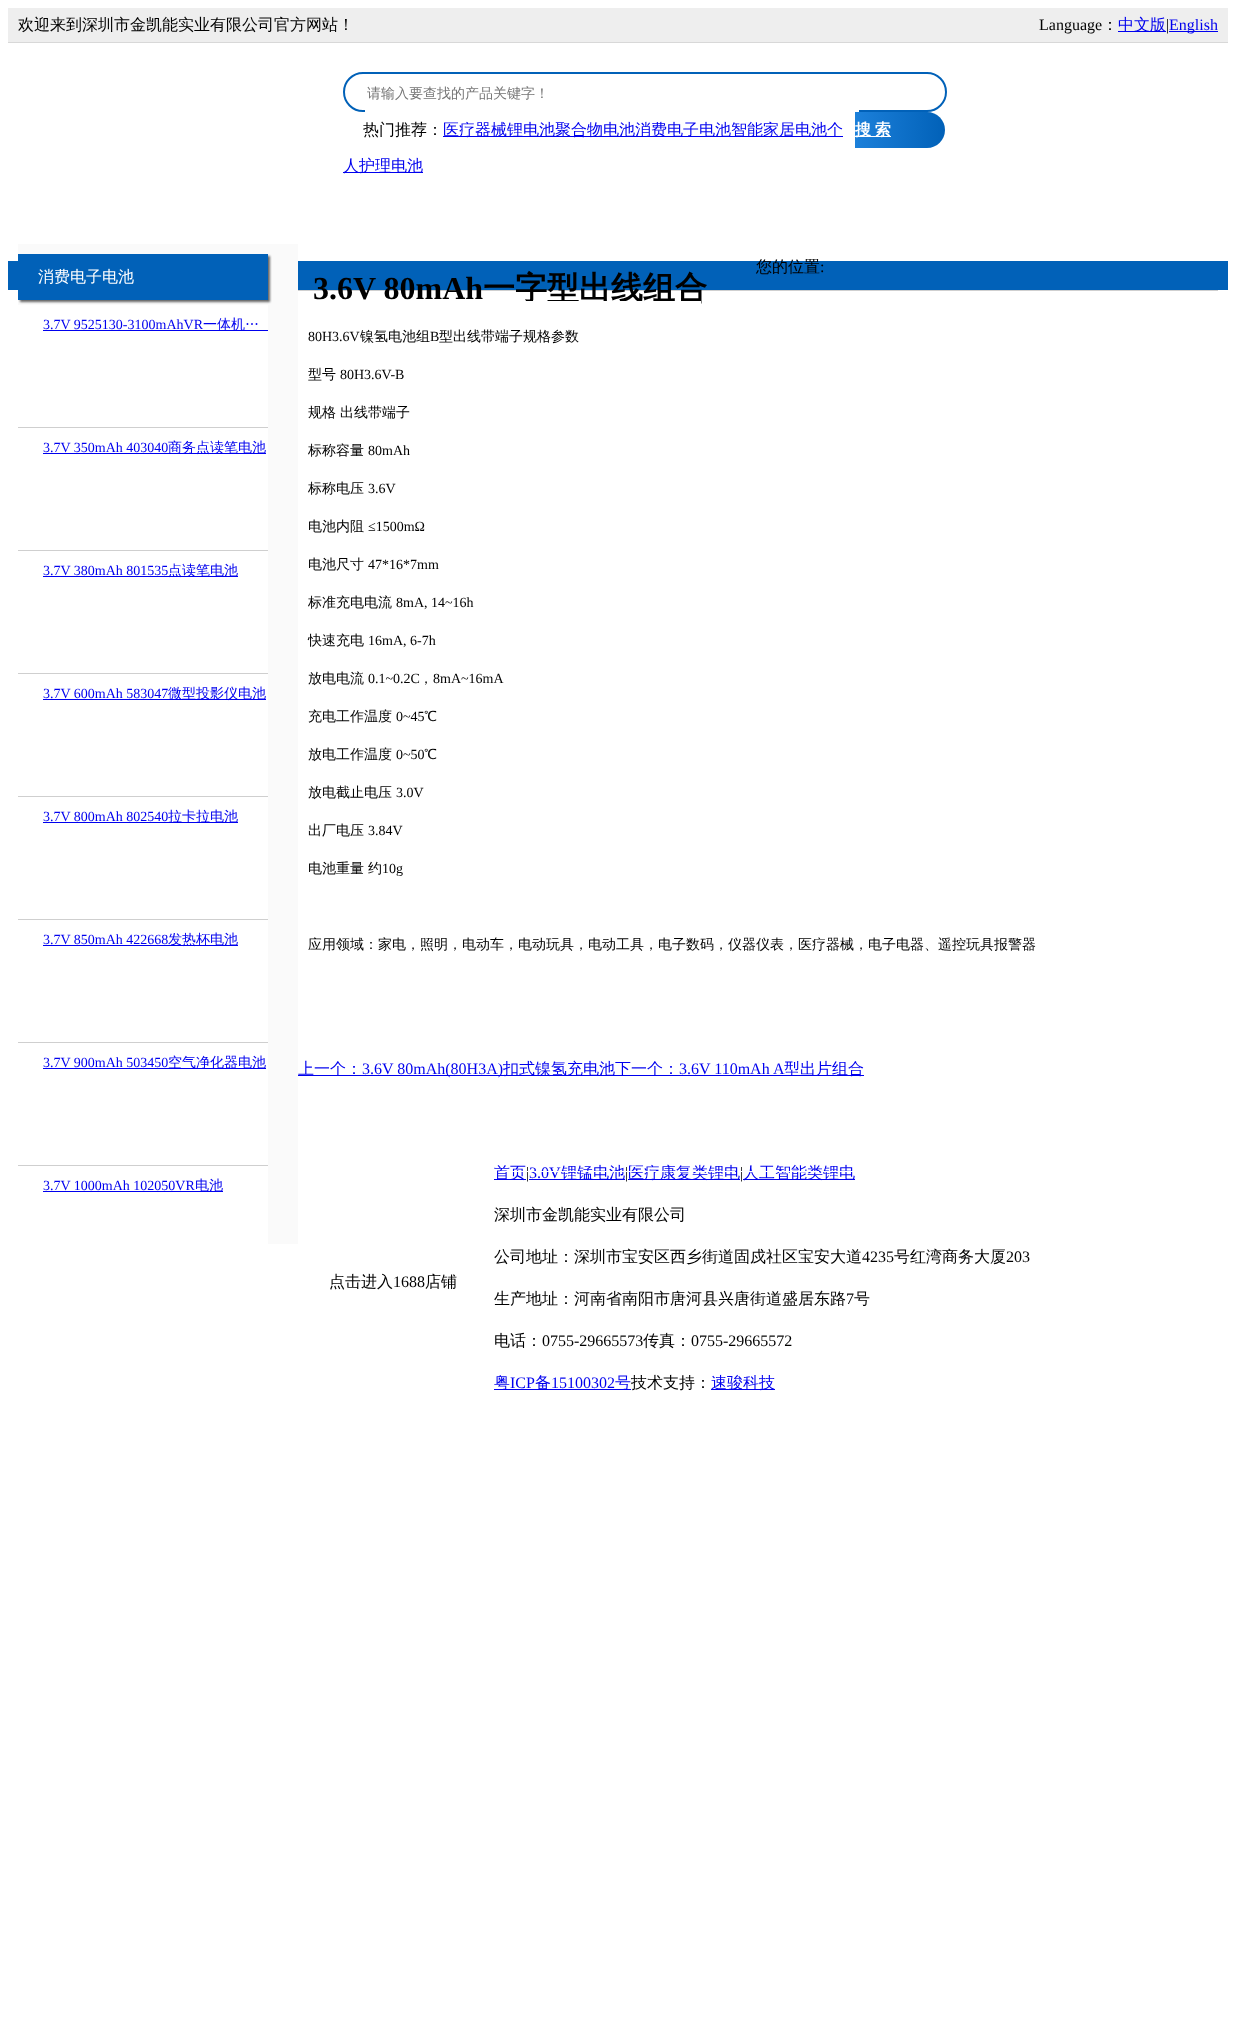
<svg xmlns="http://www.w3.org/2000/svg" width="1236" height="2040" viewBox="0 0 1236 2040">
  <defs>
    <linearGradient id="g1" gradientUnits="userSpaceOnUse" x1="855" y1="130" x2="945" y2="130"><stop offset="0" stop-color="rgb(28,128,218)"/><stop offset="1" stop-color="rgb(1,97,184)"/></linearGradient>
  </defs>
  <rect width="100%" height="100%" fill="rgb(255,255,255)"/>
  <rect x="8" y="8" width="1220" height="34" fill="rgb(238,238,238)"/>
  <rect x="8" y="42" width="1220" height="1" fill="rgb(216,216,216)"/>
  <text x="18" y="30" font-family="WenQuanYi Zen Hei" font-size="16" font-weight="500" fill="rgb(0,0,0)">欢迎来到深圳市金凯能实业有限公司官方网站！</text>
  <text x="1039" y="30" font-family="Liberation Serif" font-size="16" fill="rgb(0,0,0)">Language</text>
  <text x="1102" y="30" font-family="WenQuanYi Zen Hei" font-size="16" font-weight="500" fill="rgb(0,0,0)">：</text>
  <rect x="1118" y="31" width="48" height="1" fill="rgb(0,0,238)"/>
  <text x="1118" y="30" font-family="WenQuanYi Zen Hei" font-size="16" font-weight="500" fill="rgb(0,0,238)">中文版</text>
  <text x="1166" y="30" font-family="Liberation Serif" font-size="16" fill="rgb(0,0,0)">|</text>
  <rect x="1169" y="31" width="49" height="1" fill="rgb(0,0,238)"/>
  <text x="1169" y="30" font-family="Liberation Serif" font-size="16" fill="rgb(0,0,238)">English</text>
  <rect x="344" y="73" width="602" height="38" rx="19" fill="none" stroke="rgb(1,97,184)" stroke-width="2"/>
  <rect x="365" y="110" width="494" height="2" fill="rgb(255,255,255)"/>
  <text x="367" y="98" font-family="WenQuanYi Zen Hei" font-size="14" font-weight="500" fill="rgb(117,117,117)">请输入要查找的产品关键字！</text>
  <path d="M855 112H927C937 112 945 120 945 130C945 140 937 148 927 148H855Z" fill="url(#g1)"/>
  <rect x="855" y="136" width="36" height="1" fill="rgb(255,255,255)"/>
  <text x="855" y="135" word-spacing="-1" font-family="WenQuanYi Zen Hei" font-size="16" font-weight="bold" fill="rgb(255,255,255)">搜 索</text>
  <text x="363" y="135" font-family="WenQuanYi Zen Hei" font-size="16" font-weight="500" fill="rgb(0,0,0)">热门推荐：</text>
  <rect x="443" y="136" width="400" height="1" fill="rgb(0,0,238)"/>
  <text x="443" y="135" font-family="WenQuanYi Zen Hei" font-size="16" font-weight="500" fill="rgb(0,0,238)">医疗器械锂电池聚合物电池消费电子电池智能家居电池个</text>
  <rect x="343" y="172" width="80" height="1" fill="rgb(0,0,238)"/>
  <text x="343" y="171" font-family="WenQuanYi Zen Hei" font-size="16" font-weight="500" fill="rgb(0,0,238)">人护理电池</text>
  <rect x="8" y="261" width="1220" height="29" fill="rgb(1,97,184)"/>
  <rect x="18" y="244" width="280" height="1000" fill="rgb(250,250,250)"/>
  <rect x="20" y="256" width="250" height="46" fill="rgb(102,102,102)" filter="blur(1px)"/>
  <rect x="18" y="254" width="250" height="46" fill="rgb(1,97,184)"/>
  <text x="38" y="282" font-family="WenQuanYi Zen Hei" font-size="16" font-weight="500" fill="rgb(255,255,255)">消费电子电池</text>
  <rect x="18" y="305" width="250" height="939" fill="rgb(255,255,255)"/>
  <rect x="18" y="427" width="250" height="1" fill="rgb(207,207,207)"/>
  <text x="43" y="329" font-family="Liberation Serif" font-size="14" fill="rgb(0,0,238)">3.7V 9525130-3100mAhVR</text>
  <rect x="43" y="330" width="225" height="1" fill="rgb(0,0,238)"/>
  <text x="203" y="329" font-family="WenQuanYi Zen Hei" font-size="14" font-weight="500" fill="rgb(0,0,238)">一体机…</text>
  <rect x="18" y="550" width="250" height="1" fill="rgb(207,207,207)"/>
  <text x="43" y="452" font-family="Liberation Serif" font-size="14" fill="rgb(0,0,238)">3.7V 350mAh 403040</text>
  <rect x="43" y="453" width="223" height="1" fill="rgb(0,0,238)"/>
  <text x="168" y="452" font-family="WenQuanYi Zen Hei" font-size="14" font-weight="500" fill="rgb(0,0,238)">商务点读笔电池</text>
  <rect x="18" y="673" width="250" height="1" fill="rgb(207,207,207)"/>
  <text x="43" y="575" font-family="Liberation Serif" font-size="14" fill="rgb(0,0,238)">3.7V 380mAh 801535</text>
  <rect x="43" y="576" width="195" height="1" fill="rgb(0,0,238)"/>
  <text x="168" y="575" font-family="WenQuanYi Zen Hei" font-size="14" font-weight="500" fill="rgb(0,0,238)">点读笔电池</text>
  <rect x="18" y="796" width="250" height="1" fill="rgb(207,207,207)"/>
  <text x="43" y="698" font-family="Liberation Serif" font-size="14" fill="rgb(0,0,238)">3.7V 600mAh 583047</text>
  <rect x="43" y="699" width="223" height="1" fill="rgb(0,0,238)"/>
  <text x="168" y="698" font-family="WenQuanYi Zen Hei" font-size="14" font-weight="500" fill="rgb(0,0,238)">微型投影仪电池</text>
  <rect x="18" y="919" width="250" height="1" fill="rgb(207,207,207)"/>
  <text x="43" y="821" font-family="Liberation Serif" font-size="14" fill="rgb(0,0,238)">3.7V 800mAh 802540</text>
  <rect x="43" y="822" width="195" height="1" fill="rgb(0,0,238)"/>
  <text x="168" y="821" font-family="WenQuanYi Zen Hei" font-size="14" font-weight="500" fill="rgb(0,0,238)">拉卡拉电池</text>
  <rect x="18" y="1042" width="250" height="1" fill="rgb(207,207,207)"/>
  <text x="43" y="944" font-family="Liberation Serif" font-size="14" fill="rgb(0,0,238)">3.7V 850mAh 422668</text>
  <rect x="43" y="945" width="195" height="1" fill="rgb(0,0,238)"/>
  <text x="168" y="944" font-family="WenQuanYi Zen Hei" font-size="14" font-weight="500" fill="rgb(0,0,238)">发热杯电池</text>
  <rect x="18" y="1165" width="250" height="1" fill="rgb(207,207,207)"/>
  <text x="43" y="1067" font-family="Liberation Serif" font-size="14" fill="rgb(0,0,238)">3.7V 900mAh 503450</text>
  <rect x="43" y="1068" width="223" height="1" fill="rgb(0,0,238)"/>
  <text x="168" y="1067" font-family="WenQuanYi Zen Hei" font-size="14" font-weight="500" fill="rgb(0,0,238)">空气净化器电池</text>
  <text x="43" y="1190" font-family="Liberation Serif" font-size="14" fill="rgb(0,0,238)">3.7V 1000mAh 102050VR</text>
  <rect x="43" y="1191" width="180" height="1" fill="rgb(0,0,238)"/>
  <text x="195" y="1190" font-family="WenQuanYi Zen Hei" font-size="14" font-weight="500" fill="rgb(0,0,238)">电池</text>
  <rect x="298" y="290" width="920" height="1" fill="rgb(207,207,207)"/>
  <text x="756" y="272" font-family="WenQuanYi Zen Hei" font-size="16" font-weight="500" fill="rgb(0,0,0)">您的位置</text>
  <text x="820" y="272" font-family="Liberation Serif" font-size="16" fill="rgb(0,0,0)">:</text>
  <text x="313" y="299" font-family="Liberation Serif" font-size="32" font-weight="bold" fill="rgb(0,0,0)">3.6V 80mAh</text>
  <text x="483" y="299" font-family="WenQuanYi Zen Hei" font-size="32" font-weight="bold" fill="rgb(0,0,0)">一字型出线组合</text>
  <rect x="526" y="301" width="175" height="3" fill="rgb(255,255,255)"/>
  <text x="308" y="341" font-family="Liberation Serif" font-size="14" fill="rgb(0,0,0)">80H3.6V</text>
  <text x="360" y="341" font-family="WenQuanYi Zen Hei" font-size="14" font-weight="500" fill="rgb(0,0,0)">镍氢电池组</text>
  <text x="430" y="341" font-family="Liberation Serif" font-size="14" fill="rgb(0,0,0)">B</text>
  <g font-family="WenQuanYi Zen Hei" font-size="14" font-weight="500" fill="rgb(0,0,0)">
    <text x="439" y="341">型出线带端子规格参数</text>
    <text x="308" y="379">型号</text>
  </g>
  <text x="340" y="379" font-family="Liberation Serif" font-size="14" fill="rgb(0,0,0)">80H3.6V-B</text>
  <g font-family="WenQuanYi Zen Hei" font-size="14" font-weight="500" fill="rgb(0,0,0)">
    <text x="308" y="417">规格</text>
    <text x="340" y="417">出线带端子</text>
    <text x="308" y="455">标称容量</text>
  </g>
  <text x="368" y="455" font-family="Liberation Serif" font-size="14" fill="rgb(0,0,0)">80mAh</text>
  <text x="308" y="493" font-family="WenQuanYi Zen Hei" font-size="14" font-weight="500" fill="rgb(0,0,0)">标称电压</text>
  <text x="368" y="493" font-family="Liberation Serif" font-size="14" fill="rgb(0,0,0)">3.6V</text>
  <text x="308" y="531" font-family="WenQuanYi Zen Hei" font-size="14" font-weight="500" fill="rgb(0,0,0)">电池内阻</text>
  <text x="368" y="531" font-family="Liberation Serif" font-size="14" fill="rgb(0,0,0)">≤1500mΩ</text>
  <text x="308" y="569" font-family="WenQuanYi Zen Hei" font-size="14" font-weight="500" fill="rgb(0,0,0)">电池尺寸</text>
  <text x="368" y="569" font-family="Liberation Serif" font-size="14" fill="rgb(0,0,0)">47*16*7mm</text>
  <text x="308" y="607" font-family="WenQuanYi Zen Hei" font-size="14" font-weight="500" fill="rgb(0,0,0)">标准充电电流</text>
  <text x="396" y="607" font-family="Liberation Serif" font-size="14" fill="rgb(0,0,0)">8mA, 14~16h</text>
  <text x="308" y="645" font-family="WenQuanYi Zen Hei" font-size="14" font-weight="500" fill="rgb(0,0,0)">快速充电</text>
  <text x="368" y="645" font-family="Liberation Serif" font-size="14" fill="rgb(0,0,0)">16mA, 6-7h</text>
  <text x="308" y="683" font-family="WenQuanYi Zen Hei" font-size="14" font-weight="500" fill="rgb(0,0,0)">放电电流</text>
  <text x="368" y="683" font-family="Liberation Serif" font-size="14" fill="rgb(0,0,0)">0.1~0.2C</text>
  <text x="419" y="683" font-family="WenQuanYi Zen Hei" font-size="14" font-weight="500" fill="rgb(0,0,0)">，</text>
  <text x="433" y="683" font-family="Liberation Serif" font-size="14" fill="rgb(0,0,0)">8mA~16mA</text>
  <text x="308" y="721" font-family="WenQuanYi Zen Hei" font-size="14" font-weight="500" fill="rgb(0,0,0)">充电工作温度</text>
  <text x="396" y="721" font-family="Liberation Serif" font-size="14" fill="rgb(0,0,0)">0~45</text>
  <g font-family="WenQuanYi Zen Hei" font-size="14" font-weight="500" fill="rgb(0,0,0)">
    <text x="424" y="721">℃</text>
    <text x="308" y="759">放电工作温度</text>
  </g>
  <text x="396" y="759" font-family="Liberation Serif" font-size="14" fill="rgb(0,0,0)">0~50</text>
  <g font-family="WenQuanYi Zen Hei" font-size="14" font-weight="500" fill="rgb(0,0,0)">
    <text x="424" y="759">℃</text>
    <text x="308" y="797">放电截止电压</text>
  </g>
  <text x="396" y="797" font-family="Liberation Serif" font-size="14" fill="rgb(0,0,0)">3.0V</text>
  <text x="308" y="835" font-family="WenQuanYi Zen Hei" font-size="14" font-weight="500" fill="rgb(0,0,0)">出厂电压</text>
  <text x="368" y="835" font-family="Liberation Serif" font-size="14" fill="rgb(0,0,0)">3.84V</text>
  <g font-family="WenQuanYi Zen Hei" font-size="14" font-weight="500" fill="rgb(0,0,0)">
    <text x="308" y="873">电池重量</text>
    <text x="368" y="873">约</text>
  </g>
  <text x="382" y="873" font-family="Liberation Serif" font-size="14" fill="rgb(0,0,0)">10g</text>
  <text x="308" y="949" font-family="WenQuanYi Zen Hei" font-size="14" font-weight="500" fill="rgb(0,0,0)">应用领域：家电，照明，电动车，电动玩具，电动工具，电子数码，仪器仪表，医疗器械，电子电器、遥控玩具报警器</text>
  <rect x="298" y="1075" width="566" height="1" fill="rgb(0,0,238)"/>
  <text x="298" y="1074" font-family="WenQuanYi Zen Hei" font-size="16" font-weight="500" fill="rgb(0,0,238)">上一个：</text>
  <text x="362" y="1074" font-family="Liberation Serif" font-size="16" fill="rgb(0,0,238)">3.6V 80mAh(80H3A)</text>
  <text x="503" y="1074" font-family="WenQuanYi Zen Hei" font-size="16" font-weight="500" fill="rgb(0,0,238)">扣式镍氢充电池下一个：</text>
  <g font-family="Liberation Serif" font-size="16" fill="rgb(0,0,238)">
    <text x="679" y="1074">3.6V 110mAh</text>
    <text x="773" y="1074">A</text>
  </g>
  <text x="784" y="1074" font-family="WenQuanYi Zen Hei" font-size="16" font-weight="500" fill="rgb(0,0,238)">型出片组合</text>
  <text x="329" y="1287" font-family="WenQuanYi Zen Hei" font-size="16" font-weight="500" fill="rgb(0,0,0)">点击进入</text>
  <text x="393" y="1287" font-family="Liberation Serif" font-size="16" fill="rgb(0,0,0)">1688</text>
  <text x="425" y="1287" font-family="WenQuanYi Zen Hei" font-size="16" font-weight="500" fill="rgb(0,0,0)">店铺</text>
  <rect x="494" y="1179" width="32" height="1" fill="rgb(0,0,238)"/>
  <text x="494" y="1178" font-family="WenQuanYi Zen Hei" font-size="16" font-weight="500" fill="rgb(0,0,238)">首页</text>
  <text x="526" y="1178" font-family="Liberation Serif" font-size="16" fill="rgb(0,0,0)">|</text>
  <text x="529" y="1178" font-family="Liberation Serif" font-size="16" fill="rgb(0,0,238)">3.0V</text>
  <rect x="529" y="1179" width="96" height="1" fill="rgb(0,0,238)"/>
  <text x="561" y="1178" font-family="WenQuanYi Zen Hei" font-size="16" font-weight="500" fill="rgb(0,0,238)">锂锰电池</text>
  <text x="625" y="1178" font-family="Liberation Serif" font-size="16" fill="rgb(0,0,0)">|</text>
  <rect x="628" y="1179" width="112" height="1" fill="rgb(0,0,238)"/>
  <text x="628" y="1178" font-family="WenQuanYi Zen Hei" font-size="16" font-weight="500" fill="rgb(0,0,238)">医疗康复类锂电</text>
  <text x="740" y="1178" font-family="Liberation Serif" font-size="16" fill="rgb(0,0,0)">|</text>
  <rect x="743" y="1179" width="112" height="1" fill="rgb(0,0,238)"/>
  <text x="743" y="1178" font-family="WenQuanYi Zen Hei" font-size="16" font-weight="500" fill="rgb(0,0,238)">人工智能类锂电</text>
  <g font-family="WenQuanYi Zen Hei" font-size="16" font-weight="500" fill="rgb(0,0,0)">
    <text x="494" y="1220">深圳市金凯能实业有限公司</text>
    <text x="494" y="1262">公司地址：深圳市宝安区西乡街道固戍社区宝安大道</text>
  </g>
  <text x="862" y="1262" font-family="Liberation Serif" font-size="16" fill="rgb(0,0,0)">4235</text>
  <text x="894" y="1262" font-family="WenQuanYi Zen Hei" font-size="16" font-weight="500" fill="rgb(0,0,0)">号红湾商务大厦</text>
  <text x="1006" y="1262" font-family="Liberation Serif" font-size="16" fill="rgb(0,0,0)">203</text>
  <text x="494" y="1304" font-family="WenQuanYi Zen Hei" font-size="16" font-weight="500" fill="rgb(0,0,0)">生产地址：河南省南阳市唐河县兴唐街道盛居东路</text>
  <text x="846" y="1304" font-family="Liberation Serif" font-size="16" fill="rgb(0,0,0)">7</text>
  <g font-family="WenQuanYi Zen Hei" font-size="16" font-weight="500" fill="rgb(0,0,0)">
    <text x="854" y="1304">号</text>
    <text x="494" y="1346">电话：</text>
  </g>
  <text x="542" y="1346" font-family="Liberation Serif" font-size="16" fill="rgb(0,0,0)">0755-29665573</text>
  <text x="643" y="1346" font-family="WenQuanYi Zen Hei" font-size="16" font-weight="500" fill="rgb(0,0,0)">传真：</text>
  <text x="691" y="1346" font-family="Liberation Serif" font-size="16" fill="rgb(0,0,0)">0755-29665572</text>
  <rect x="494" y="1389" width="137" height="1" fill="rgb(0,0,238)"/>
  <text x="494" y="1388" font-family="WenQuanYi Zen Hei" font-size="16" font-weight="500" fill="rgb(0,0,238)">粤</text>
  <text x="510" y="1388" font-family="Liberation Serif" font-size="16" fill="rgb(0,0,238)">ICP</text>
  <text x="535" y="1388" font-family="WenQuanYi Zen Hei" font-size="16" font-weight="500" fill="rgb(0,0,238)">备</text>
  <text x="551" y="1388" font-family="Liberation Serif" font-size="16" fill="rgb(0,0,238)">15100302</text>
  <text x="615" y="1388" font-family="WenQuanYi Zen Hei" font-size="16" font-weight="500" fill="rgb(0,0,238)">号</text>
  <text x="631" y="1388" font-family="WenQuanYi Zen Hei" font-size="16" font-weight="500" fill="rgb(0,0,0)">技术支持：</text>
  <rect x="711" y="1389" width="64" height="1" fill="rgb(0,0,238)"/>
  <text x="711" y="1388" font-family="WenQuanYi Zen Hei" font-size="16" font-weight="500" fill="rgb(0,0,238)">速骏科技</text>
  <text x="631" y="1170" font-family="Liberation Serif" font-size="16" fill="rgb(255,255,255)">-</text>
  <rect x="583" y="1171" width="85" height="1" fill="rgb(255,255,255)"/>
  <rect x="500" y="1171" width="80" height="1" fill="rgb(255,255,255)"/>
  <rect x="671" y="1171" width="64" height="1" fill="rgb(255,255,255)"/>
  <rect x="739" y="1171" width="80" height="1" fill="rgb(255,255,255)"/>
  <rect x="822" y="1171" width="31" height="1" fill="rgb(255,255,255)"/>
</svg>
